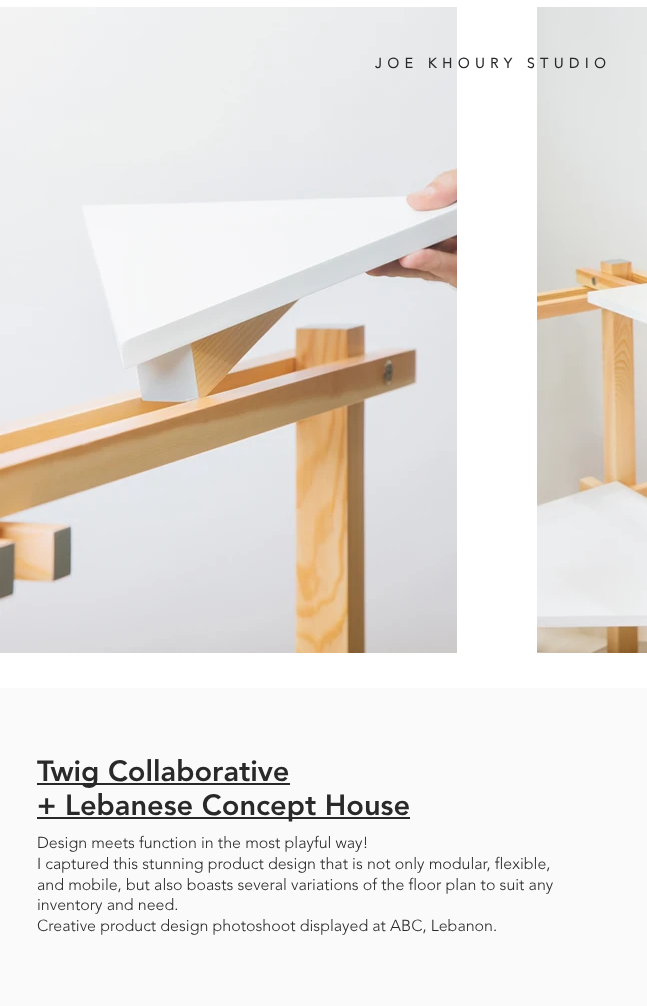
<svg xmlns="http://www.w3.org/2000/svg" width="647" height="1006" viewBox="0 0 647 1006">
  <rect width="100%" height="100%" fill="rgb(255,255,255)"/>
  <image x="0" y="7" width="457" height="646" href="pic1.png"/>
  <image x="537" y="7" width="110" height="646" href="pic2.png"/>
  <text x="375" y="68" font-family="'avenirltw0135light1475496'" font-size="14" font-weight="bold" letter-spacing="5.6" fill="rgb(41,41,41)">JOE KHOURY STUDIO</text>
  <rect x="0" y="688" width="647" height="318" fill="rgb(250,250,250)"/>
  <rect x="37" y="783" width="253" height="2" fill="rgb(41,41,41)"/>
  <text x="37" y="781" font-family="'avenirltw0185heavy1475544'" font-size="29" font-weight="900" fill="rgb(41,41,41)">Twig Collaborative</text>
  <rect x="37" y="817" width="373" height="2" fill="rgb(41,41,41)"/>
  <text x="37" y="815" font-family="'avenirltw0185heavy1475544'" font-size="29" font-weight="900" fill="rgb(41,41,41)">+ Lebanese Concept House</text>
  <g font-family="'avenirltw0135light1475496'" font-size="16" font-weight="300" fill="rgb(41,41,41)">
    <text>
      <tspan x="37" y="848">Design meets function in the most playful way!</tspan>
      <tspan x="37" y="869">I captured this stunning product design that is not only modular, flexible,</tspan>
      <tspan x="37" y="890">and mobile, but also boasts several variations of the floor plan to suit any</tspan>
      <tspan x="37" y="910">inventory and need.</tspan>
      <tspan x="37" y="931">Creative product design photoshoot displayed at ABC, Lebanon.</tspan>
    </text>
  </g>
</svg>
